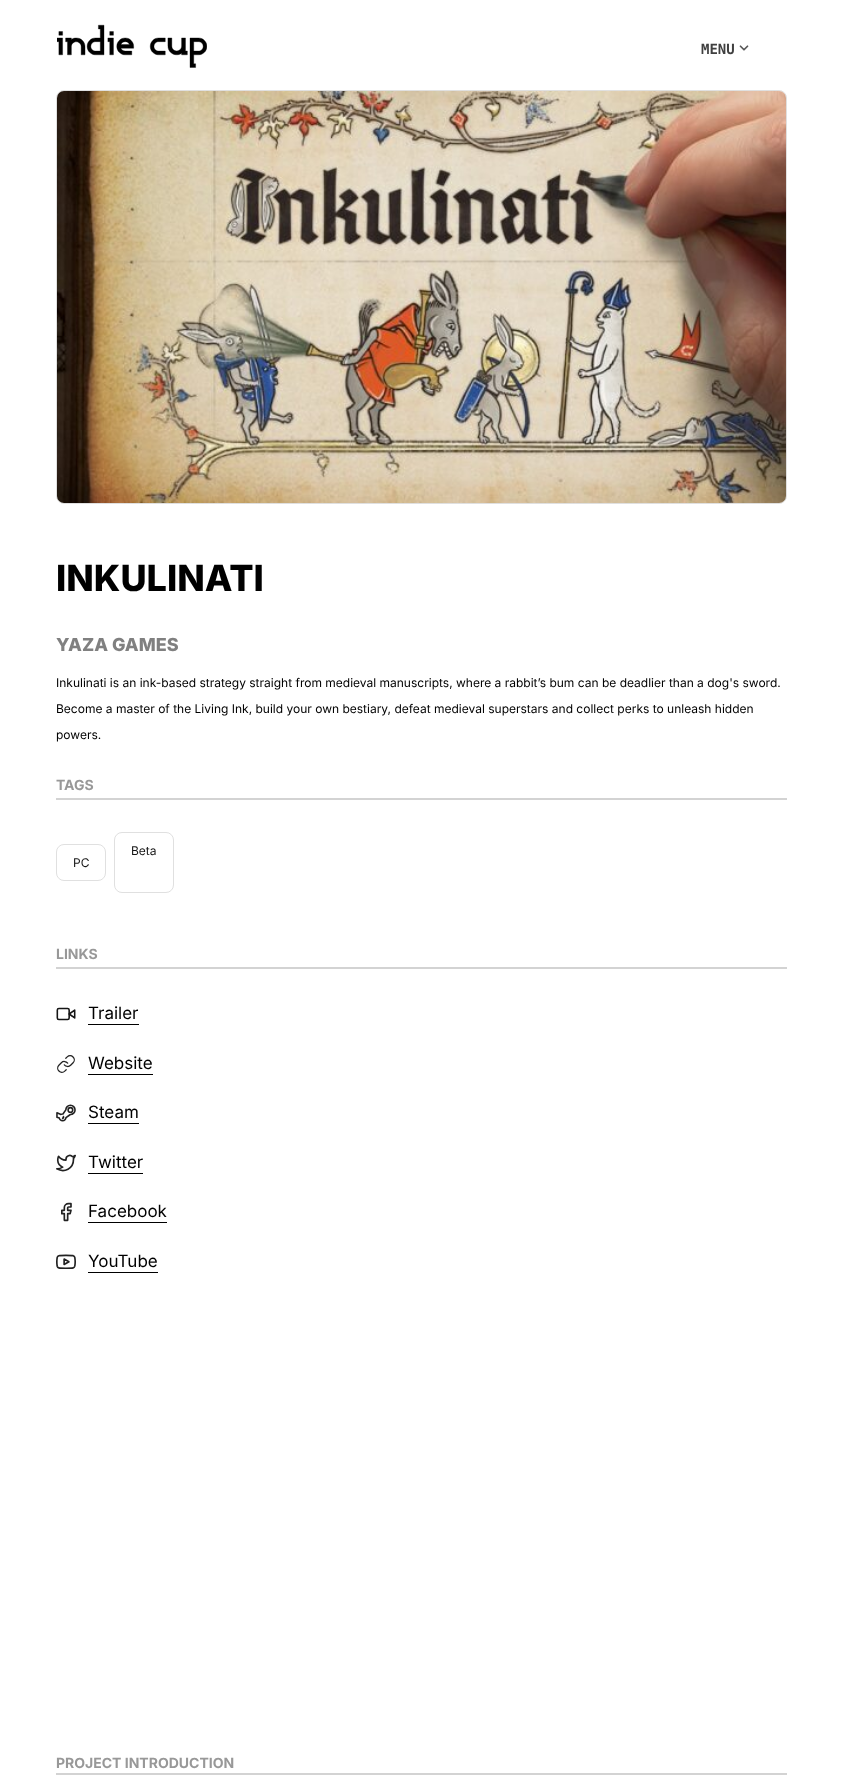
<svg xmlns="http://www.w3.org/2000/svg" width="843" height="1787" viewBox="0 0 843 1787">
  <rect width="100%" height="100%" fill="rgb(255,255,255)"/>
  <image x="57" y="24" width="150" height="44" href="pic1.png"/>
  <text x="701" y="54" font-family="DejaVu Sans Mono" font-size="14" font-weight="bold" fill="rgb(64,64,64)">MENU</text>
  <image x="739" y="45" width="10" height="6" href="pic2.png"/>
  <rect x="56.5" y="90.5" width="730" height="413" rx="7.5" fill="none" stroke="rgb(224,224,224)"/>
  <image x="57" y="91" width="729" height="412" href="pic3.png"/>
  <text x="56" y="591" font-family="Inter" font-size="36" font-weight="800" fill="rgb(0,0,0)">INKULINATI</text>
  <text x="56" y="651" font-family="Inter" font-size="18" font-weight="800" fill="rgb(128,128,128)">YAZA GAMES</text>
  <g font-family="Inter" font-size="12" fill="rgb(0,0,0)">
    <text x="56" y="687">Inkulinati is an ink-based strategy straight from medieval manuscripts, where a rabbit’s bum can be deadlier than a dog's sword.</text>
    <text x="56" y="713">Become a master of the Living Ink, build your own bestiary, defeat medieval superstars and collect perks to unleash hidden</text>
    <text x="56" y="739">powers.</text>
  </g>
  <rect x="56" y="798" width="731" height="2" fill="rgb(211,211,211)"/>
  <text x="56" y="790" font-family="Inter" font-size="14" font-weight="bold" fill="rgb(152,152,152)">TAGS</text>
  <rect x="114.5" y="832.5" width="59" height="60" rx="7.5" fill="none" stroke="rgb(224,224,224)"/>
  <text x="131" y="855" font-family="Inter" font-size="12" fill="rgb(21,21,21)">Beta</text>
  <rect x="56.5" y="844.5" width="49" height="36" rx="7.5" fill="none" stroke="rgb(224,224,224)"/>
  <text x="73" y="867" font-family="Inter" font-size="12" fill="rgb(21,21,21)">PC</text>
  <rect x="56" y="967" width="731" height="2" fill="rgb(211,211,211)"/>
  <text x="56" y="959" font-family="Inter" font-size="14" font-weight="bold" fill="rgb(152,152,152)">LINKS</text>
  <image x="56" y="1007" width="20" height="14" href="pic4.png"/>
  <text x="88" y="1019" font-family="Inter" font-size="17" fill="rgb(0,0,0)">Trailer</text>
  <rect x="88" y="1024" width="51" height="1" fill="rgb(0,0,0)"/>
  <image x="57" y="1055" width="18" height="18" href="pic5.png"/>
  <text x="88" y="1069" font-family="Inter" font-size="17" fill="rgb(0,0,0)">Website</text>
  <rect x="88" y="1074" width="65" height="1" fill="rgb(0,0,0)"/>
  <image x="56" y="1104" width="20" height="18" href="pic6.png"/>
  <text x="88" y="1118" font-family="Inter" font-size="17" fill="rgb(0,0,0)">Steam</text>
  <rect x="88" y="1123" width="51" height="1" fill="rgb(0,0,0)"/>
  <image x="56" y="1154" width="20" height="18" href="pic7.png"/>
  <text x="88" y="1168" font-family="Inter" font-size="17" fill="rgb(0,0,0)">Twitter</text>
  <rect x="88" y="1173" width="55" height="1" fill="rgb(0,0,0)"/>
  <image x="61" y="1202" width="11" height="20" href="pic8.png"/>
  <text x="88" y="1217" font-family="Inter" font-size="17" fill="rgb(0,0,0)">Facebook</text>
  <rect x="88" y="1222" width="79" height="1" fill="rgb(0,0,0)"/>
  <image x="56" y="1254" width="20" height="15" href="pic9.png"/>
  <text x="88" y="1267" font-family="Inter" font-size="17" fill="rgb(0,0,0)">YouTube</text>
  <rect x="88" y="1272" width="70" height="1" fill="rgb(0,0,0)"/>
  <rect x="56" y="1773" width="731" height="2" fill="rgb(211,211,211)"/>
  <text x="56" y="1768" font-family="Inter" font-size="14" font-weight="bold" fill="rgb(152,152,152)">PROJECT INTRODUCTION</text>
</svg>
